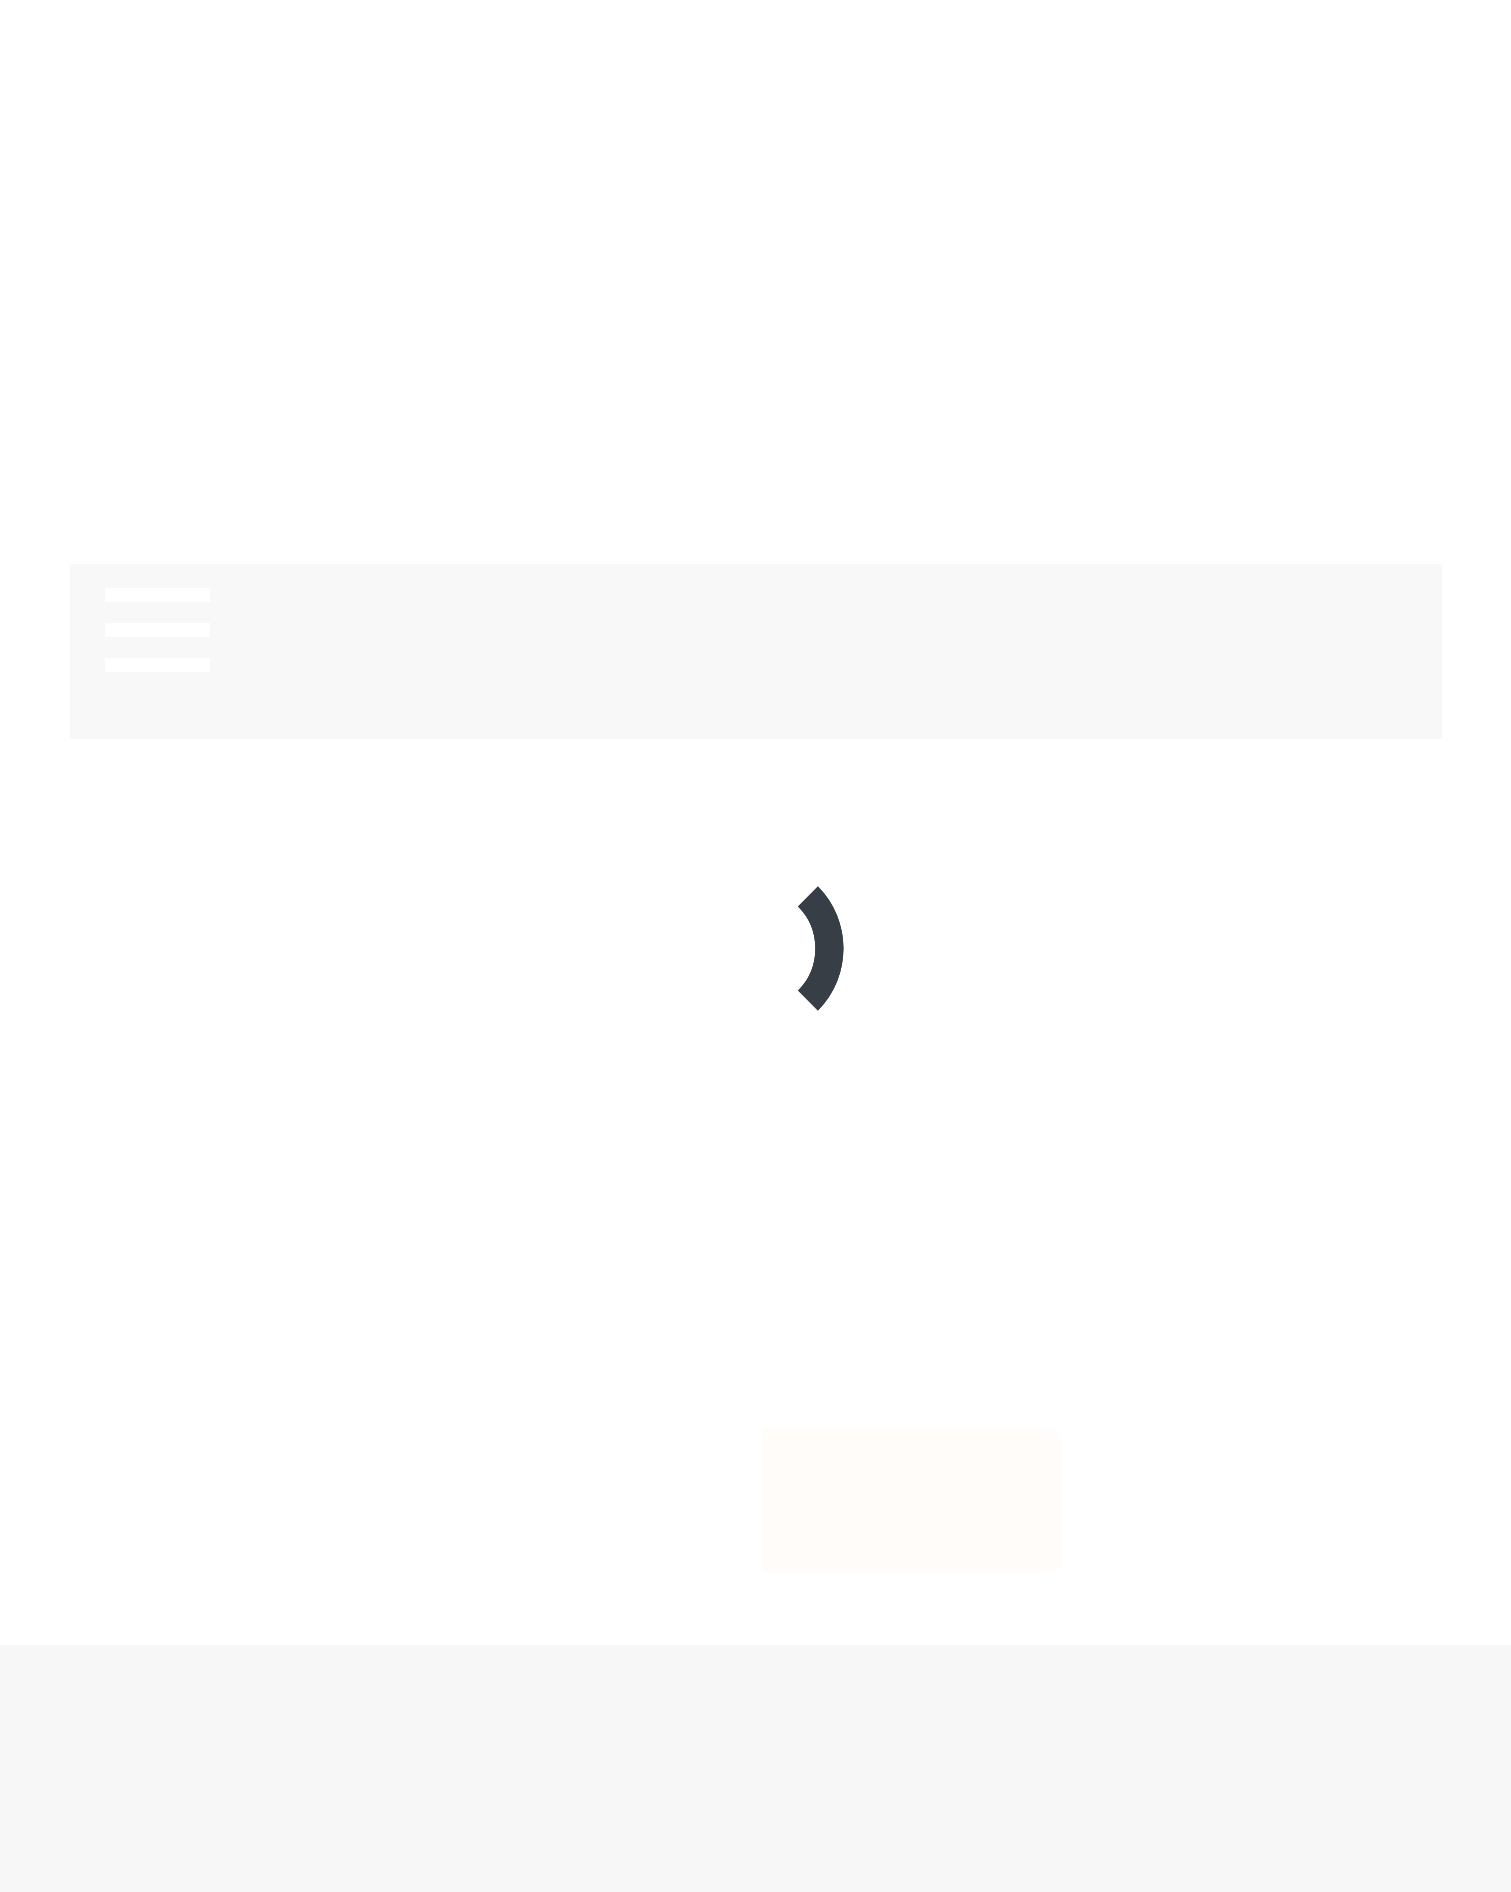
<svg xmlns="http://www.w3.org/2000/svg" width="1511" height="1892" viewBox="0 0 1511 1892">
  <rect width="100%" height="100%" fill="rgb(255,255,255)"/>
  <rect x="70" y="564" width="1372" height="175" fill="rgb(248,248,248)"/>
  <rect x="105" y="588" width="105" height="14" fill="rgb(255,255,255)"/>
  <rect x="105" y="623" width="105" height="14" fill="rgb(255,255,255)"/>
  <rect x="105" y="658" width="105" height="14" fill="rgb(255,255,255)"/>
  <path d="M808 896.5C836.5 925 836.5 972 808 1000.5" fill="none" stroke="rgba(57,62,70,0.9)" stroke-width="28"/>
  <path d="M808 896.5C836.5 925 836.5 972 808 1000.5" fill="none" stroke="rgba(57,62,70,0.9)" stroke-width="28"/>
  <path d="M808 896.5C836.5 925 836.5 972 808 1000.5" fill="none" stroke="rgba(57,62,70,0.9)" stroke-width="28"/>
  <path d="M763 1428H1047C1054.5 1428 1061 1434.5 1061 1442V1558C1061 1565.5 1054.5 1572 1047 1572H763Z" fill="rgb(255,252,249)"/>
  <rect x="0" y="1645" width="1511" height="247" fill="rgb(247,247,247)"/>
</svg>
